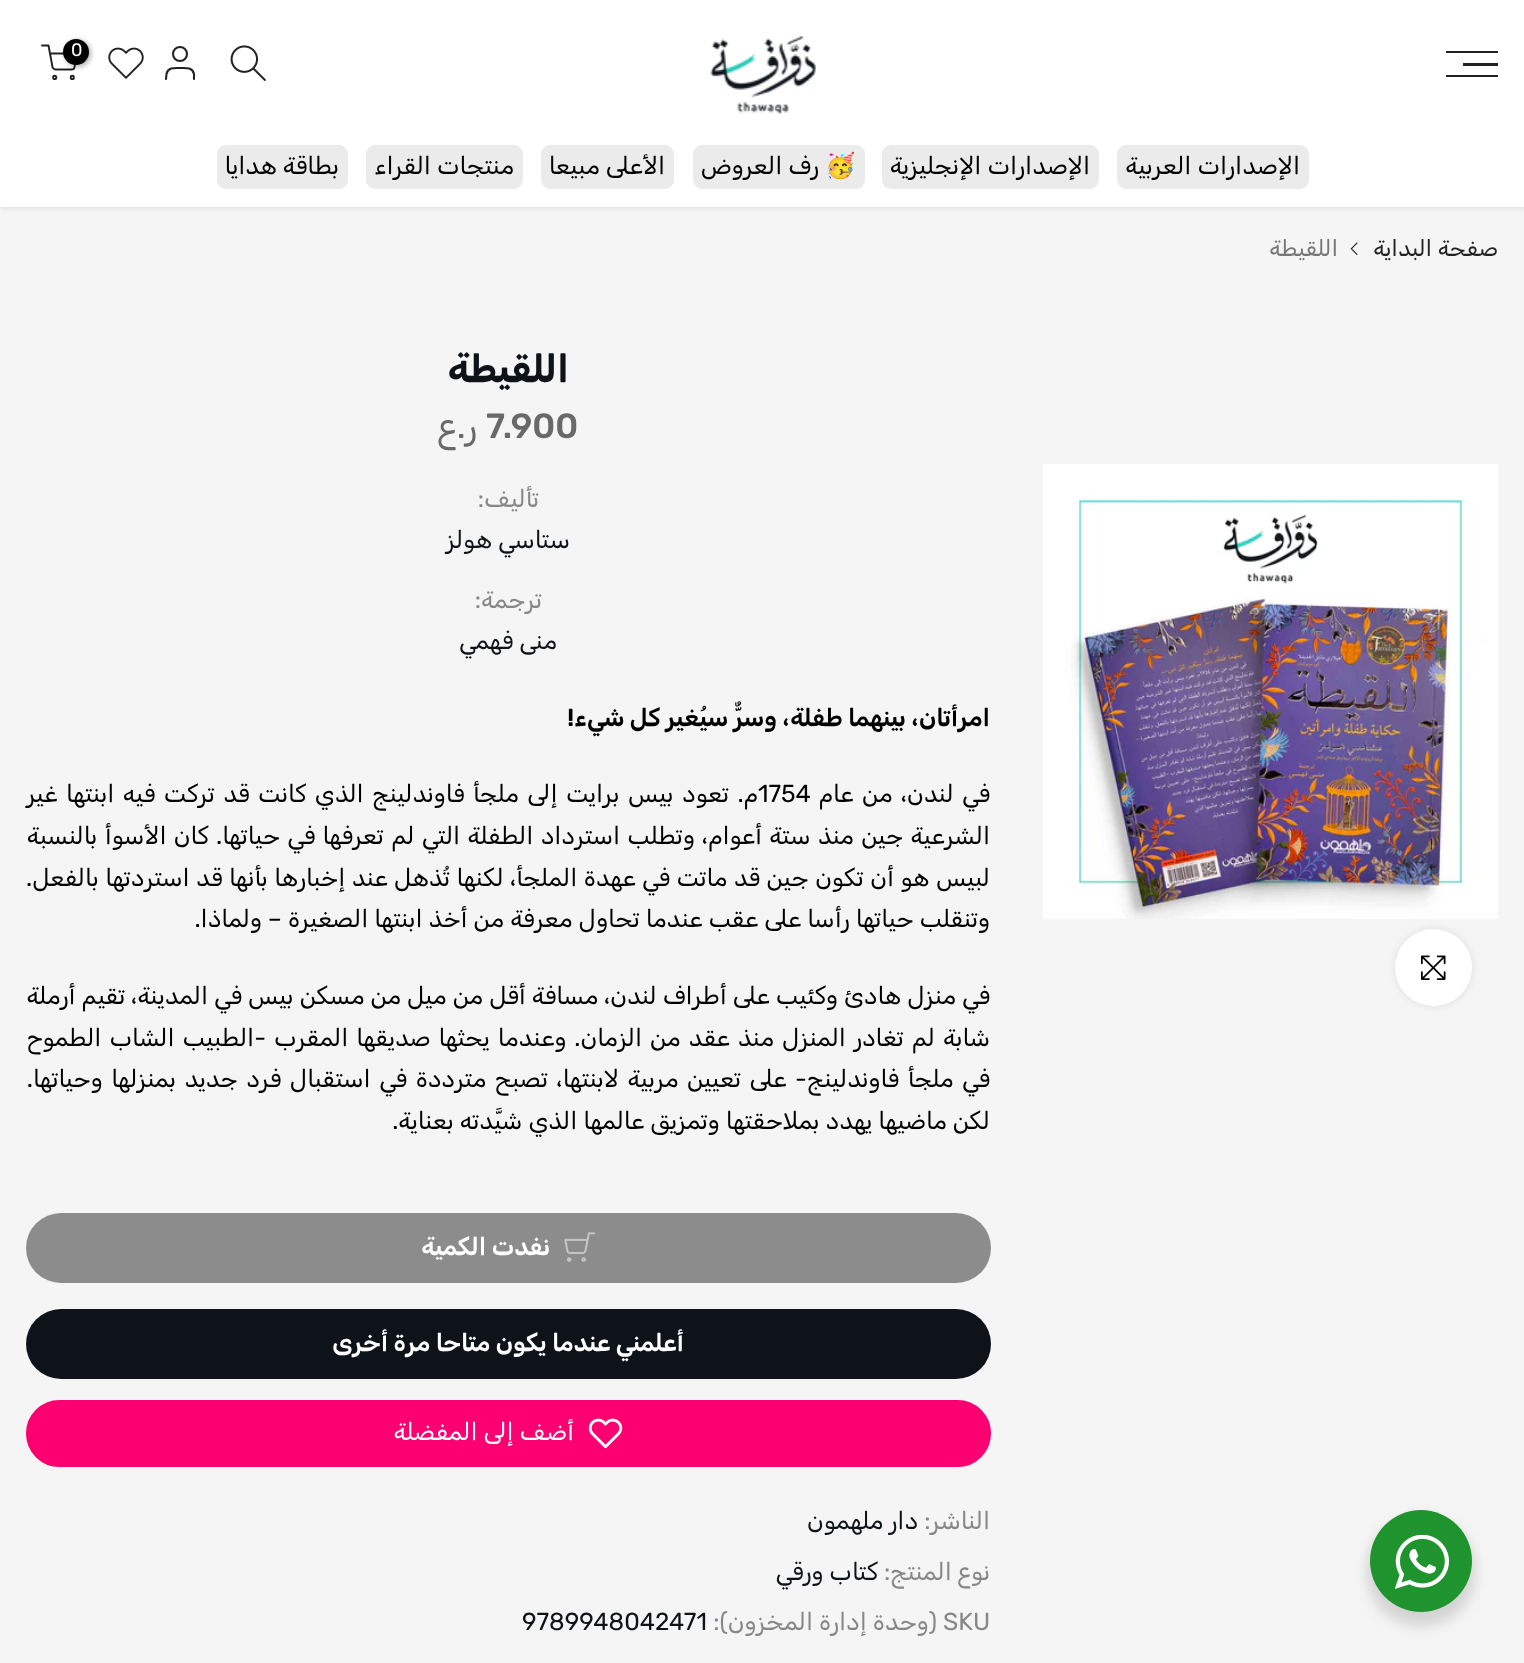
<svg xmlns="http://www.w3.org/2000/svg" width="1524" height="1663" viewBox="0 0 1524 1663">
  <rect width="100%" height="100%" fill="rgb(245,245,245)"/>
  <rect x="0" y="2" width="1524" height="206" fill="rgba(0,0,0,0.1)" filter="blur(2.5px)"/>
  <rect x="0" y="0" width="1524" height="207" fill="rgb(255,255,255)"/>
  <rect x="1446" y="75" width="52" height="2" fill="rgb(34,34,34)"/>
  <rect x="1463" y="63" width="35" height="3" fill="rgb(34,34,34)"/>
  <rect x="1446" y="51" width="52" height="2" fill="rgb(34,34,34)"/>
  <image x="710" y="35" width="106" height="79" href="pic1.png"/>
  <image x="230" y="45" width="36" height="36" href="pic2.png"/>
  <circle cx="180" cy="54" r="7" fill="none" stroke="rgb(34,34,34)" stroke-width="2.1"/>
  <path d="M194 79V74C192.5 67 185.5 68 180 68C175 68 168 67 166.5 74L166 79" fill="none" stroke="rgb(34,34,34)" stroke-width="2.1" stroke-linecap="round" stroke-linejoin="round"/>
  <image x="108" y="47" width="36" height="32" href="pic3.png"/>
  <path d="M42 45.5H48.5L52.5 67C53 68.5 54 69.5 56 69.5H71.5C73 69.5 74.5 68.5 74.5 67L77 53.5H50" fill="none" stroke="rgb(34,34,34)" stroke-width="1.9" stroke-linecap="round" stroke-linejoin="round"/>
  <circle cx="72.3" cy="77.4" r="1.6" fill="none" stroke="rgb(34,34,34)" stroke-width="1.9"/>
  <circle cx="54.7" cy="77.4" r="1.6" fill="none" stroke="rgb(34,34,34)" stroke-width="1.9"/>
  <rect x="65" y="40" width="26" height="27" rx="13" fill="rgba(0,0,0,0.3)" filter="blur(2.5px)"/>
  <circle cx="76" cy="52" r="13" fill="rgb(0,0,0)"/>
  <text x="71" y="56" font-family="Rubik" font-size="18" fill="rgb(255,255,255)">0</text>
  <rect x="1117" y="145" width="192" height="44" rx="9" fill="rgb(235,235,235)"/>
  <text x="1300" y="174" font-family="Rubik" font-size="24.5" direction="rtl" fill="rgb(0,0,0)">الإصدارات العربية</text>
  <rect x="882" y="145" width="217" height="44" rx="9" fill="rgb(235,235,235)"/>
  <text x="1090" y="174" font-family="Rubik" font-size="24.5" direction="rtl" fill="rgb(0,0,0)">الإصدارات الإنجليزية</text>
  <rect x="693" y="145" width="172" height="44" rx="9" fill="rgb(235,235,235)"/>
  <text x="856" y="174" font-family="Noto Color Emoji" font-size="24.5" direction="rtl" fill="rgb(0,0,0)">🥳</text>
  <text x="819" y="174" font-family="Rubik" font-size="24.5" direction="rtl" fill="rgb(0,0,0)">رف العروض</text>
  <rect x="541" y="145" width="133" height="44" rx="9" fill="rgb(235,235,235)"/>
  <text x="665" y="174" font-family="Rubik" font-size="24.5" direction="rtl" fill="rgb(0,0,0)">الأعلى مبيعا</text>
  <rect x="366" y="145" width="157" height="44" rx="9" fill="rgb(235,235,235)"/>
  <text x="514" y="174" font-family="Rubik" font-size="24.5" direction="rtl" fill="rgb(0,0,0)">منتجات القراء</text>
  <rect x="217" y="145" width="131" height="44" rx="9" fill="rgb(235,235,235)"/>
  <text x="339" y="174" font-family="Rubik" font-size="24.5" direction="rtl" fill="rgb(0,0,0)">بطاقة هدايا</text>
  <text x="1498" y="256" font-family="Rubik" font-size="22.75" direction="rtl" fill="rgb(34,34,34)">صفحة البداية</text>
  <image x="1350" y="242" width="8" height="13" href="pic4.png"/>
  <text x="1338" y="256" font-family="Rubik" font-size="22.75" direction="rtl" fill="rgb(118,118,118)">اللقيطة</text>
  <image x="1043" y="464" width="455" height="455" href="pic5.png"/>
  <rect x="1395" y="929" width="77" height="77" rx="38.5" fill="rgba(0,0,0,0.09)" filter="blur(4.5px)"/>
  <circle cx="1433.5" cy="967.5" r="38.5" fill="rgb(255,255,255)"/>
  <image x="1421" y="955" width="25" height="25" href="pic6.png"/>
  <text x="569" y="382" font-family="Rubik" font-size="38.5" font-weight="bold" direction="rtl" fill="rgb(13,19,25)">اللقيطة</text>
  <text x="486" y="438" font-family="Rubik" font-size="35" font-weight="500" fill="rgb(105,105,105)">7.900</text>
  <text x="477" y="438" font-family="Rubik" font-size="35" direction="rtl" fill="rgb(105,105,105)">ر.ع</text>
  <text x="539" y="507" font-family="Rubik" font-size="24.5" direction="rtl" fill="rgb(135,135,135)">تأليف:</text>
  <text x="570" y="548" font-family="Rubik" font-size="24.5" direction="rtl" fill="rgb(13,19,25)">ستاسي هولز</text>
  <text x="542" y="608" font-family="Rubik" font-size="24.5" direction="rtl" fill="rgb(135,135,135)">ترجمة:</text>
  <text x="557" y="649" font-family="Rubik" font-size="24.5" direction="rtl" fill="rgb(13,19,25)">منى فهمي</text>
  <text x="990" y="726" font-family="Rubik" font-size="24.5" font-weight="600" direction="rtl" fill="rgb(0,0,0)">امرأتان، بينهما طفلة، وسرٌّ سيُغير كل شيء!</text>
  <text x="990" y="802" word-spacing="2.5" font-family="Rubik" font-size="24.5" direction="rtl" fill="rgb(0,0,0)">في لندن، من عام</text>
  <text x="758" y="802" font-family="Rubik" font-size="24.5" fill="rgb(0,0,0)">1754</text>
  <g font-family="Rubik" font-size="24.5" direction="rtl" fill="rgb(0,0,0)">
    <text x="758" y="802" word-spacing="2.5">م. تعود بيس برايت إلى ملجأ فاوندلينج الذي كانت قد تركت فيه ابنتها غير</text>
    <text>
      <tspan x="990" y="844" word-spacing="1.25">الشرعية جين منذ ستة أعوام، وتطلب استرداد الطفلة التي لم تعرفها في حياتها. كان الأسوأ بالنسبة</tspan>
      <tspan x="990" y="886" word-spacing="0.5">لبيس هو أن تكون جين قد ماتت في عهدة الملجأ، لكنها تُذهل عند إخبارها بأنها قد استردتها بالفعل.</tspan>
      <tspan x="990" y="927">وتنقلب حياتها رأسا على عقب عندما تحاول معرفة من أخذ ابنتها الصغيرة – ولماذا.</tspan>
    </text>
    <text>
      <tspan x="990" y="1004">في منزل هادئ وكئيب على أطراف لندن، مسافة أقل من ميل من مسكن بيس في المدينة، تقيم أرملة</tspan>
      <tspan x="990" y="1046" word-spacing="2">شابة لم تغادر المنزل منذ عقد من الزمان. وعندما يحثها صديقها المقرب -الطبيب الشاب الطموح</tspan>
      <tspan x="990" y="1087" word-spacing="2.5">في ملجأ فاوندلينج- على تعيين مربية لابنتها، تصبح مترددة في استقبال فرد جديد بمنزلها وحياتها.</tspan>
      <tspan x="990" y="1129">لكن ماضيها يهدد بملاحقتها وتمزيق عالمها الذي شيَّدته بعناية.</tspan>
    </text>
  </g>
  <rect x="26" y="1213" width="965" height="70" rx="35" fill="rgb(140,140,140)"/>
  <image x="564" y="1232" width="31" height="30" href="pic7.png"/>
  <text x="550" y="1255" font-family="Rubik" font-size="24.5" font-weight="600" direction="rtl" fill="rgb(255,255,255)">نفدت الكمية</text>
  <rect x="26" y="1309" width="965" height="70" rx="35" fill="rgb(13,19,25)"/>
  <text x="684" y="1351" font-family="Rubik" font-size="24.5" font-weight="600" direction="rtl" fill="rgb(255,255,255)">أعلمني عندما يكون متاحا مرة أخرى</text>
  <rect x="27" y="1401" width="963" height="65" rx="32.5" fill="rgb(252,0,113)" stroke="rgb(252,0,113)" stroke-width="2"/>
  <image x="588" y="1418" width="35" height="31" href="pic8.png"/>
  <text x="574" y="1440" font-family="Rubik" font-size="24.5" direction="rtl" fill="rgb(255,255,255)">أضف إلى المفضلة</text>
  <text x="990" y="1529" font-family="Rubik" font-size="24.5" direction="rtl" fill="rgb(135,135,135)">الناشر:</text>
  <text x="918" y="1529" font-family="Rubik" font-size="24.5" direction="rtl" fill="rgb(13,19,25)">دار ملهمون</text>
  <text x="990" y="1580" font-family="Rubik" font-size="24.5" direction="rtl" fill="rgb(135,135,135)">نوع المنتج:</text>
  <text x="878" y="1580" font-family="Rubik" font-size="24.5" direction="rtl" fill="rgb(13,19,25)">كتاب ورقي</text>
  <text x="943" y="1630" font-family="Rubik" font-size="24.5" fill="rgb(135,135,135)">SKU</text>
  <text x="937" y="1630" font-family="Rubik" font-size="24.5" direction="rtl" fill="rgb(135,135,135)">(وحدة إدارة المخزون):</text>
  <text x="522" y="1630" font-family="Rubik" font-size="24.5" fill="rgb(13,19,25)">9789948042471</text>
  <rect x="1367" y="1517" width="108" height="109" rx="54" fill="rgba(0,0,0,0.14)" filter="blur(7px)"/>
  <circle cx="1421" cy="1561" r="51" fill="rgb(31,147,45)"/>
  <image x="1395" y="1535" width="54" height="54" href="pic9.png"/>
</svg>
